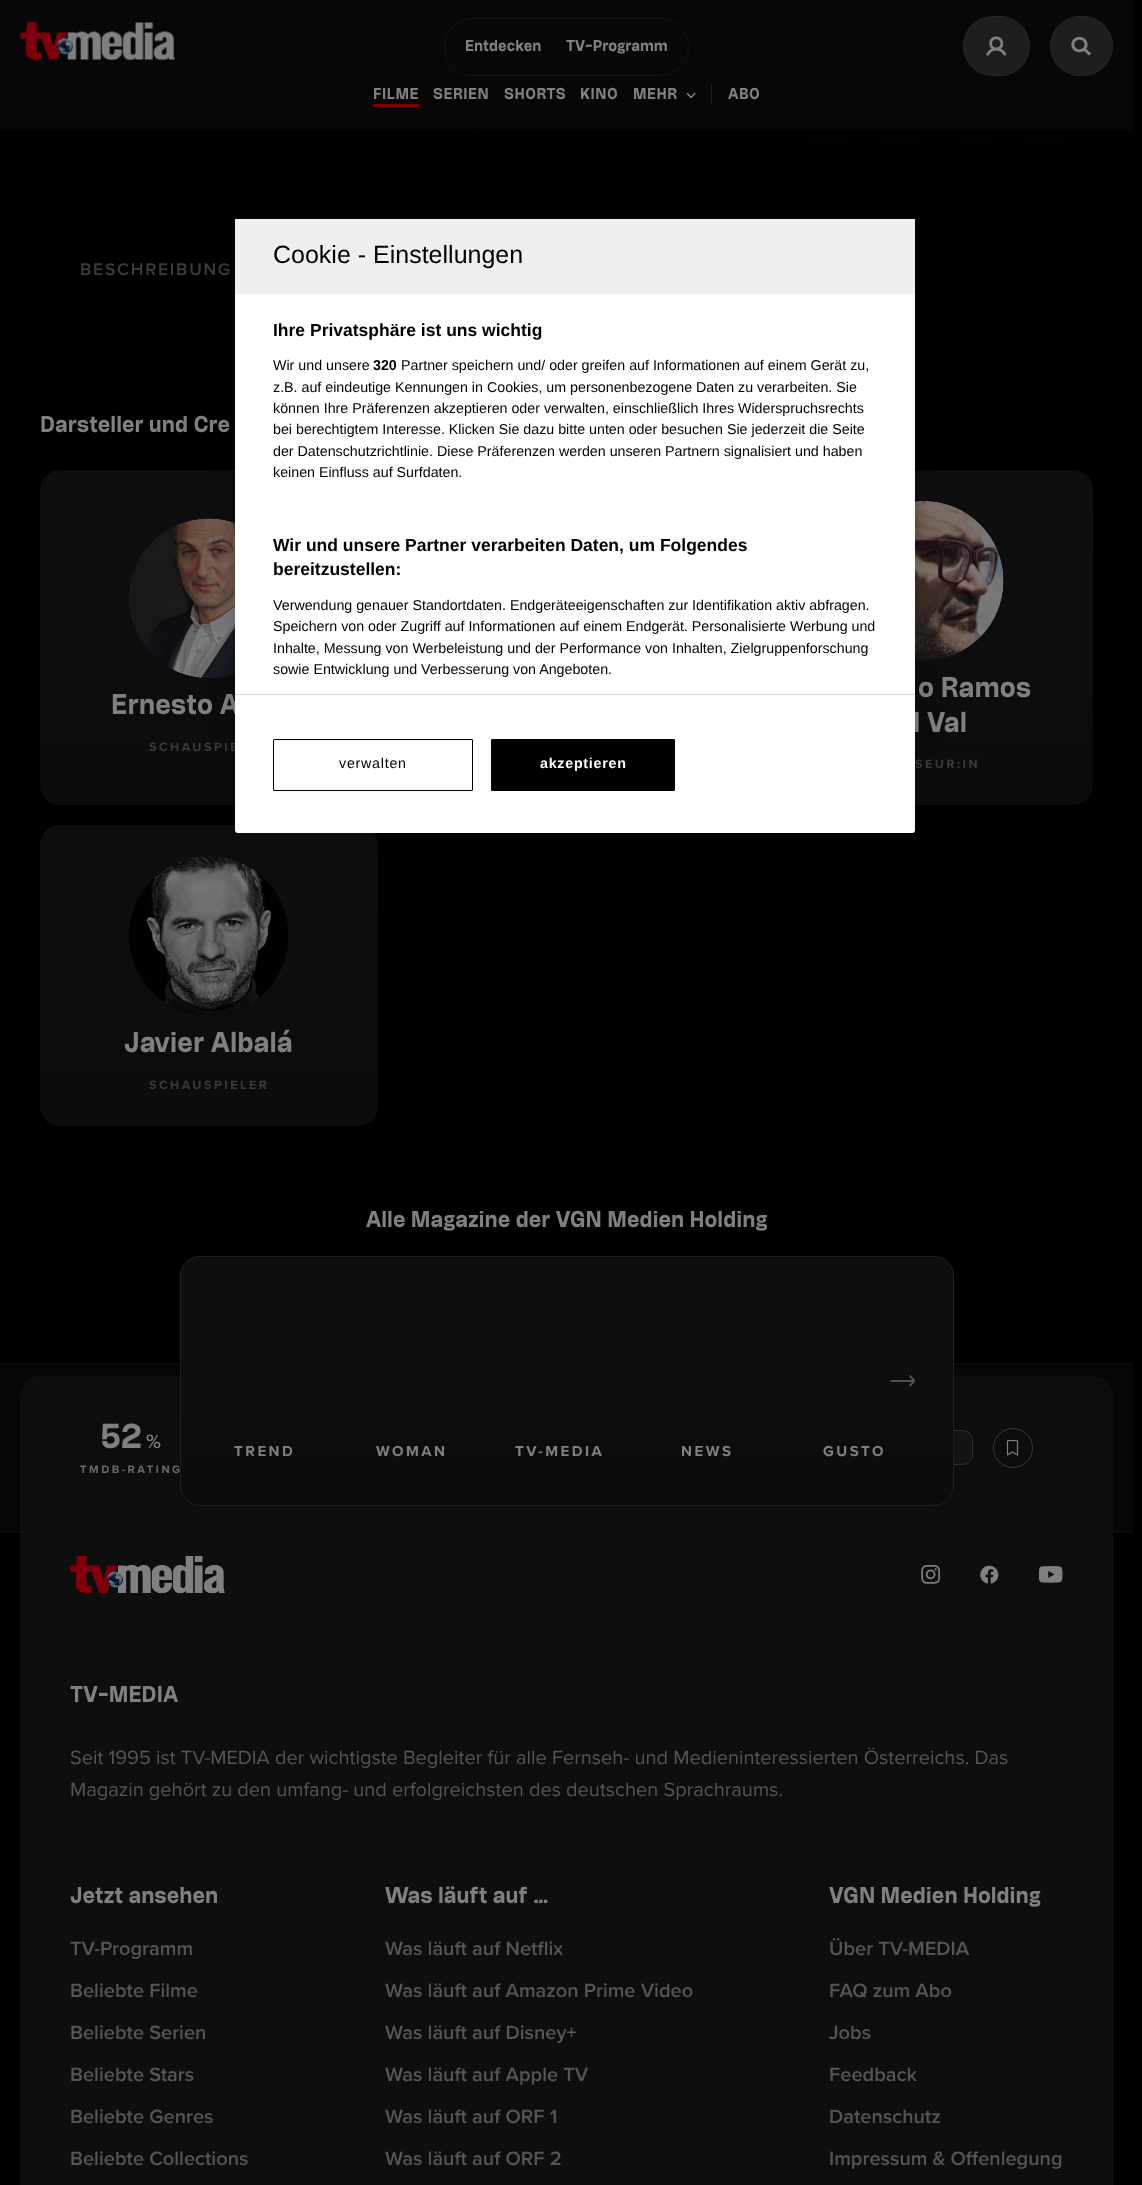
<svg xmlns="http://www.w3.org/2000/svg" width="1142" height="2185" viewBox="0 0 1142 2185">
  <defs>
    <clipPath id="clip1"><rect x="686" y="93" width="10" height="5"/></clipPath>
    <clipPath id="clip2"><rect x="40" y="470" width="338" height="335" rx="20"/></clipPath>
    <linearGradient id="g1" gradientUnits="userSpaceOnUse" x1="209" y1="471" x2="209" y2="139"><stop offset="0" stop-color="rgb(12,12,12)"/><stop offset="1" stop-color="rgb(14,14,15)"/></linearGradient>
    <linearGradient id="g2" gradientUnits="userSpaceOnUse" x1="209" y1="804" x2="209" y2="471"><stop offset="0" stop-color="rgb(12,12,12)"/><stop offset="1" stop-color="rgb(14,14,15)"/></linearGradient>
    <linearGradient id="g3" gradientUnits="userSpaceOnUse" x1="209" y1="1136" x2="209" y2="804"><stop offset="0" stop-color="rgb(12,12,12)"/><stop offset="1" stop-color="rgb(14,14,15)"/></linearGradient>
    <clipPath id="clip3"><rect x="755" y="470" width="338" height="335" rx="20"/></clipPath>
    <linearGradient id="g4" gradientUnits="userSpaceOnUse" x1="924" y1="471" x2="924" y2="139"><stop offset="0" stop-color="rgb(12,12,12)"/><stop offset="1" stop-color="rgb(14,14,15)"/></linearGradient>
    <linearGradient id="g5" gradientUnits="userSpaceOnUse" x1="924" y1="804" x2="924" y2="471"><stop offset="0" stop-color="rgb(12,12,12)"/><stop offset="1" stop-color="rgb(14,14,15)"/></linearGradient>
    <linearGradient id="g6" gradientUnits="userSpaceOnUse" x1="924" y1="1136" x2="924" y2="804"><stop offset="0" stop-color="rgb(12,12,12)"/><stop offset="1" stop-color="rgb(14,14,15)"/></linearGradient>
    <clipPath id="clip4"><rect x="40" y="825" width="338" height="301" rx="20"/></clipPath>
    <linearGradient id="g7" gradientUnits="userSpaceOnUse" x1="209" y1="826" x2="209" y2="528"><stop offset="0" stop-color="rgb(12,12,12)"/><stop offset="1" stop-color="rgb(14,14,15)"/></linearGradient>
    <linearGradient id="g8" gradientUnits="userSpaceOnUse" x1="209" y1="1125" x2="209" y2="826"><stop offset="0" stop-color="rgb(12,12,12)"/><stop offset="1" stop-color="rgb(14,14,15)"/></linearGradient>
    <linearGradient id="g9" gradientUnits="userSpaceOnUse" x1="209" y1="1424" x2="209" y2="1125"><stop offset="0" stop-color="rgb(12,12,12)"/><stop offset="1" stop-color="rgb(14,14,15)"/></linearGradient>
    <linearGradient id="g10" gradientUnits="userSpaceOnUse" x1="566" y1="-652" x2="566" y2="148"><stop offset="0" stop-color="rgb(0,0,0)" stop-opacity="0.4"/><stop offset="0.5" stop-color="rgb(0,0,0)" stop-opacity="0.5"/><stop offset="1" stop-color="rgb(0,0,0)"/></linearGradient>
    <linearGradient id="g11" gradientUnits="userSpaceOnUse" x1="20" y1="1936" x2="1113" y2="1936"><stop offset="0" stop-color="rgb(14,14,15)"/><stop offset="1" stop-color="rgb(14,14,14)"/></linearGradient>
    <clipPath id="clip5"><rect x="180" y="1256" width="774" height="250" rx="20"/></clipPath>
    <linearGradient id="g12" gradientUnits="userSpaceOnUse" x1="567" y1="1010" x2="567" y2="1258"><stop offset="0" stop-color="rgb(128,128,128)" stop-opacity="0"/><stop offset="0.5" stop-color="rgb(0,0,0)" stop-opacity="0"/><stop offset="1" stop-color="rgb(0,0,0)" stop-opacity="0.2"/></linearGradient>
    <linearGradient id="g13" gradientUnits="userSpaceOnUse" x1="567" y1="1258" x2="567" y2="1505"><stop offset="0" stop-color="rgb(128,128,128)" stop-opacity="0"/><stop offset="0.5" stop-color="rgb(0,0,0)" stop-opacity="0"/><stop offset="1" stop-color="rgb(0,0,0)" stop-opacity="0.2"/></linearGradient>
  </defs>
  <rect width="100%" height="100%" fill="rgb(0,0,0)"/>
  <rect x="0" y="0" width="1133" height="130" fill="rgb(7,7,7)"/>
  <image x="19" y="22" width="156" height="39" href="pic1.png"/>
  <rect x="444.5" y="18.5" width="244" height="57" rx="28.5" fill="none" stroke="rgb(19,19,19)"/>
  <g font-family="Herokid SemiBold" font-size="13.75" font-weight="600" fill="rgb(128,128,128)">
    <text x="465" y="51">Entdecken</text>
    <text x="566" y="51">TV-Programm</text>
  </g>
  <rect x="963" y="16" width="67" height="60" rx="30" fill="rgb(30,30,31)"/>
  <rect x="963.5" y="16.5" width="66" height="59" rx="29.5" fill="none" stroke="rgba(42,42,44,0.65)"/>
  <image x="986" y="36" width="21" height="20" href="pic2.png"/>
  <rect x="1050" y="16" width="63" height="60" rx="30" fill="rgb(30,30,31)"/>
  <rect x="1050.5" y="16.5" width="62" height="59" rx="29.5" fill="none" stroke="rgba(42,42,44,0.65)"/>
  <image x="1071" y="36" width="20" height="20" href="pic3.png"/>
  <text x="373" y="99" font-family="Herokid SemiBold" font-size="13.75" font-weight="600" letter-spacing="0.5" fill="rgb(128,128,128)">FILME</text>
  <rect x="373" y="104" width="46" height="3" fill="rgb(128,0,0)"/>
  <g font-family="Herokid SemiBold" font-size="13.75" font-weight="600" letter-spacing="0.5" fill="rgb(128,128,128)">
    <text x="433" y="99">SERIEN</text>
    <text x="504" y="99">SHORTS</text>
    <text x="580" y="99">KINO</text>
    <text x="633" y="99">MEHR</text>
  </g>
  <g clip-path="url(#clip1)">
    <path d="M687.5 93.5L691 97.5L695 93.5" fill="none" stroke="rgb(128,128,128)" stroke-width="1.5" stroke-linecap="round" stroke-linejoin="round"/>
  </g>
  <rect x="711" y="85" width="1" height="20" fill="rgb(33,33,35)"/>
  <text x="728" y="99" font-family="Herokid SemiBold" font-size="13.75" font-weight="600" letter-spacing="0.5" fill="rgb(128,128,128)">ABO</text>
  <text x="80" y="275" font-family="Proxima Nova" font-size="17.5" font-weight="600" letter-spacing="1.75" fill="rgb(59,59,59)">BESCHREIBUNG</text>
  <text x="40" y="432" font-family="Herokid SemiBold" font-size="20" font-weight="600" fill="rgb(128,128,128)">Darsteller und Cre</text>
  <g clip-path="url(#clip2)">
    <rect x="54" y="470" width="181" height="1" fill="url(#g1)"/>
    <rect x="40" y="471" width="195" height="333" fill="url(#g2)"/>
    <rect x="54" y="804" width="181" height="1" fill="url(#g3)"/>
  </g>
  <image x="129" y="518" width="106" height="160" href="pic4.png"/>
  <text x="111" y="714" font-family="Herokid SemiBold" font-size="25" font-weight="600" fill="rgb(128,128,128)">Ernesto A</text>
  <text x="149" y="751" font-family="Proxima Nova" font-size="12.5" font-weight="bold" letter-spacing="2.5" fill="rgb(59,59,59)">SCHAUSPIE</text>
  <g clip-path="url(#clip3)">
    <rect x="915" y="470" width="164" height="1" fill="url(#g4)"/>
    <rect x="915" y="471" width="178" height="333" fill="url(#g5)"/>
    <rect x="915" y="804" width="164" height="1" fill="url(#g6)"/>
  </g>
  <image x="915" y="501" width="89" height="160" href="pic5.png"/>
  <g font-family="Herokid SemiBold" font-size="25" font-weight="600" fill="rgb(128,128,128)">
    <text x="918" y="697">o Ramos</text>
    <text x="913" y="732">l Val</text>
  </g>
  <text x="915" y="768" font-family="Proxima Nova" font-size="12.5" font-weight="bold" letter-spacing="2.5" fill="rgb(59,59,59)">SEUR:IN</text>
  <g clip-path="url(#clip4)">
    <rect x="54" y="825" width="181" height="1" fill="url(#g7)"/>
    <rect x="40" y="826" width="338" height="299" fill="url(#g8)"/>
    <rect x="54" y="1125" width="310" height="1" fill="url(#g9)"/>
  </g>
  <image x="129" y="856" width="160" height="159" href="pic6.png"/>
  <text x="124" y="1052" font-family="Herokid SemiBold" font-size="25" font-weight="600" fill="rgb(128,128,128)">Javier Albalá</text>
  <text x="149" y="1089" font-family="Proxima Nova" font-size="12.5" font-weight="bold" letter-spacing="2.5" fill="rgb(59,59,59)">SCHAUSPIELER</text>
  <image x="0" y="130" width="1133" height="13" href="pic7.png"/>
  <rect x="0" y="130" width="1133" height="13" fill="url(#g10)"/>
  <rect x="20" y="1376" width="1093" height="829" rx="20" fill="url(#g11)"/>
  <rect x="0" y="1364" width="1133" height="169" fill="rgba(12,12,12,0.5)"/>
  <rect x="0" y="1363" width="1133" height="1" fill="rgb(15,15,16)"/>
  <rect x="0" y="1531" width="1133" height="1" fill="rgba(42,42,44,0.25)"/>
  <text x="100" y="1448" font-family="Herokid SemiBold" font-size="30" font-weight="600" fill="rgb(128,128,128)">52</text>
  <text x="146" y="1448" font-family="Proxima Nova" font-size="20" font-weight="600" letter-spacing="2" fill="rgb(128,128,128)">%</text>
  <text x="80" y="1473" font-family="Proxima Nova" font-size="11.25" font-weight="bold" letter-spacing="2.5" fill="rgb(105,105,105)">TMDB-RATING</text>
  <rect x="879" y="1430" width="94" height="35" rx="10" fill="rgb(19,19,19)"/>
  <rect x="879.5" y="1430.5" width="93" height="34" rx="9.5" fill="none" stroke="rgba(128,128,128,0.25)"/>
  <circle cx="1013" cy="1448" r="19.5" fill="none" stroke="rgb(59,59,59)"/>
  <image x="1006" y="1440" width="13" height="16" href="pic8.png"/>
  <text x="366" y="1227" font-family="Herokid SemiBold" font-size="20" font-weight="600" fill="rgb(128,128,128)">Alle Magazine der VGN Medien Holding</text>
  <rect x="180" y="1256" width="774" height="250" rx="20" fill="rgb(14,14,15)"/>
  <g clip-path="url(#clip5)">
    <rect x="191" y="1256" width="752" height="2" fill="url(#g12)"/>
    <rect x="180" y="1395" width="774" height="110" fill="url(#g13)"/>
  </g>
  <rect x="180.5" y="1256.5" width="773" height="249" rx="19.5" fill="none" stroke="rgba(42,42,44,0.65)"/>
  <path d="M890.5 1381H914.5M914.5 1381L909.5 1375.5M914.5 1381L909.5 1386" fill="none" stroke="rgb(82,82,83)" stroke-width="1.9"/>
  <g font-family="Proxima Nova" font-size="15" font-weight="bold" letter-spacing="2.5" fill="rgb(128,128,128)">
    <text x="234" y="1456">TREND</text>
    <text x="376" y="1456">WOMAN</text>
    <text x="515" y="1456">TV-MEDIA</text>
    <text x="681" y="1456">NEWS</text>
    <text x="823" y="1456">GUSTO</text>
  </g>
  <image x="70" y="1555" width="155" height="39" href="pic9.png"/>
  <image x="921" y="1565" width="19" height="19" href="pic10.png"/>
  <image x="980" y="1565" width="19" height="19" href="pic11.png"/>
  <image x="1039" y="1566" width="24" height="17" href="pic12.png"/>
  <text x="70" y="1702" font-family="Herokid SemiBold" font-size="20" font-weight="600" fill="rgb(128,128,128)">TV-MEDIA</text>
  <g font-family="Proxima Nova" font-size="20" fill="rgb(85,85,85)">
    <text>
      <tspan x="70" y="1764">Seit 1995 ist TV-MEDIA der wichtigste Begleiter für alle Fernseh- und Medieninteressierten Österreichs. Das</tspan>
      <tspan x="70" y="1796">Magazin gehört zu den umfang- und erfolgreichsten des deutschen Sprachraums.</tspan>
    </text>
  </g>
  <text x="70" y="1903" font-family="Herokid SemiBold" font-size="20" font-weight="600" fill="rgb(128,128,128)">Jetzt ansehen</text>
  <g font-family="Proxima Nova" font-size="20" font-weight="600" fill="rgb(85,85,85)">
    <text x="70" y="1955">TV-Programm</text>
    <text x="70" y="1997">Beliebte Filme</text>
    <text x="70" y="2039">Beliebte Serien</text>
    <text x="70" y="2081">Beliebte Stars</text>
    <text x="70" y="2123">Beliebte Genres</text>
    <text x="70" y="2165">Beliebte Collections</text>
  </g>
  <text x="385" y="1903" font-family="Herokid SemiBold" font-size="20" font-weight="600" fill="rgb(128,128,128)">Was läuft auf …</text>
  <g font-family="Proxima Nova" font-size="20" font-weight="600" fill="rgb(85,85,85)">
    <text x="385" y="1955">Was läuft auf Netflix</text>
    <text x="385" y="1997">Was läuft auf Amazon Prime Video</text>
    <text x="385" y="2039">Was läuft auf Disney+</text>
    <text x="385" y="2081">Was läuft auf Apple TV</text>
    <text x="385" y="2123">Was läuft auf ORF 1</text>
    <text x="385" y="2165">Was läuft auf ORF 2</text>
  </g>
  <text x="829" y="1903" font-family="Herokid SemiBold" font-size="20" font-weight="600" fill="rgb(128,128,128)">VGN Medien Holding</text>
  <g font-family="Proxima Nova" font-size="20" font-weight="600" fill="rgb(85,85,85)">
    <text x="829" y="1955">Über TV-MEDIA</text>
    <text x="829" y="1997">FAQ zum Abo</text>
    <text x="829" y="2039">Jobs</text>
    <text x="829" y="2081">Feedback</text>
    <text x="829" y="2123">Datenschutz</text>
    <text x="829" y="2165">Impressum &amp; Offenlegung</text>
  </g>
  <rect x="235" y="219" width="680" height="614" rx="3" fill="rgba(0,0,0,0.2)" filter="blur(11px)"/>
  <rect x="235" y="219" width="680" height="614" rx="3" fill="rgb(255,255,255)"/>
  <rect x="235" y="219" width="680" height="75" fill="rgb(239,239,239)"/>
  <text x="273" y="263" font-family="Liberation Sans" font-size="25" fill="rgb(0,0,0)">Cookie - Einstellungen</text>
  <text x="273" y="336" font-family="Liberation Sans" font-size="17.5" font-weight="bold" fill="rgb(0,0,0)">Ihre Privatsphäre ist uns wichtig</text>
  <text x="273" y="370" font-family="Liberation Sans" font-size="14.25" fill="rgb(0,0,0)">Wir und unsere</text>
  <text x="373" y="370" font-family="Liberation Sans" font-size="14.25" font-weight="bold" fill="rgb(0,0,0)">320</text>
  <g font-family="Liberation Sans" font-size="14.25" fill="rgb(0,0,0)">
    <text x="401" y="370">Partner speichern und/ oder greifen auf Informationen auf einem Gerät zu,</text>
    <text>
      <tspan x="273" y="392">z.B. auf eindeutige Kennungen in Cookies, um personenbezogene Daten zu verarbeiten. Sie</tspan>
      <tspan x="273" y="413">können Ihre Präferenzen akzeptieren oder verwalten, einschließlich Ihres Widerspruchsrechts</tspan>
      <tspan x="273" y="434">bei berechtigtem Interesse. Klicken Sie dazu bitte unten oder besuchen Sie jederzeit die Seite</tspan>
      <tspan x="273" y="456">der Datenschutzrichtlinie. Diese Präferenzen werden unseren Partnern signalisiert und haben</tspan>
      <tspan x="273" y="477">keinen Einfluss auf Surfdaten.</tspan>
    </text>
  </g>
  <g font-family="Liberation Sans" font-size="17.5" font-weight="bold" fill="rgb(0,0,0)">
    <text>
      <tspan x="273" y="551">Wir und unsere Partner verarbeiten Daten, um Folgendes</tspan>
      <tspan x="273" y="575">bereitzustellen:</tspan>
    </text>
  </g>
  <g font-family="Liberation Sans" font-size="14.25" fill="rgb(0,0,0)">
    <text>
      <tspan x="273" y="610">Verwendung genauer Standortdaten. Endgeräteeigenschaften zur Identifikation aktiv abfragen.</tspan>
      <tspan x="273" y="631">Speichern von oder Zugriff auf Informationen auf einem Endgerät. Personalisierte Werbung und</tspan>
      <tspan x="273" y="653">Inhalte, Messung von Werbeleistung und der Performance von Inhalten, Zielgruppenforschung</tspan>
      <tspan x="273" y="674">sowie Entwicklung und Verbesserung von Angeboten.</tspan>
    </text>
  </g>
  <rect x="235" y="694" width="680" height="1" fill="rgb(215,215,215)"/>
  <rect x="273.5" y="739.5" width="199" height="51" rx="0.5" fill="none" stroke="rgb(0,0,0)"/>
  <text x="339" y="768" font-family="Liberation Sans" font-size="14.25" letter-spacing="0.75" fill="rgb(0,0,0)">verwalten</text>
  <rect x="491.5" y="739.5" width="183" height="51" rx="0.5" fill="rgb(0,0,0)" stroke="rgb(0,0,0)"/>
  <text x="540" y="768" font-family="Liberation Sans" font-size="14.25" font-weight="bold" letter-spacing="0.75" fill="rgb(255,255,255)">akzeptieren</text>
</svg>
